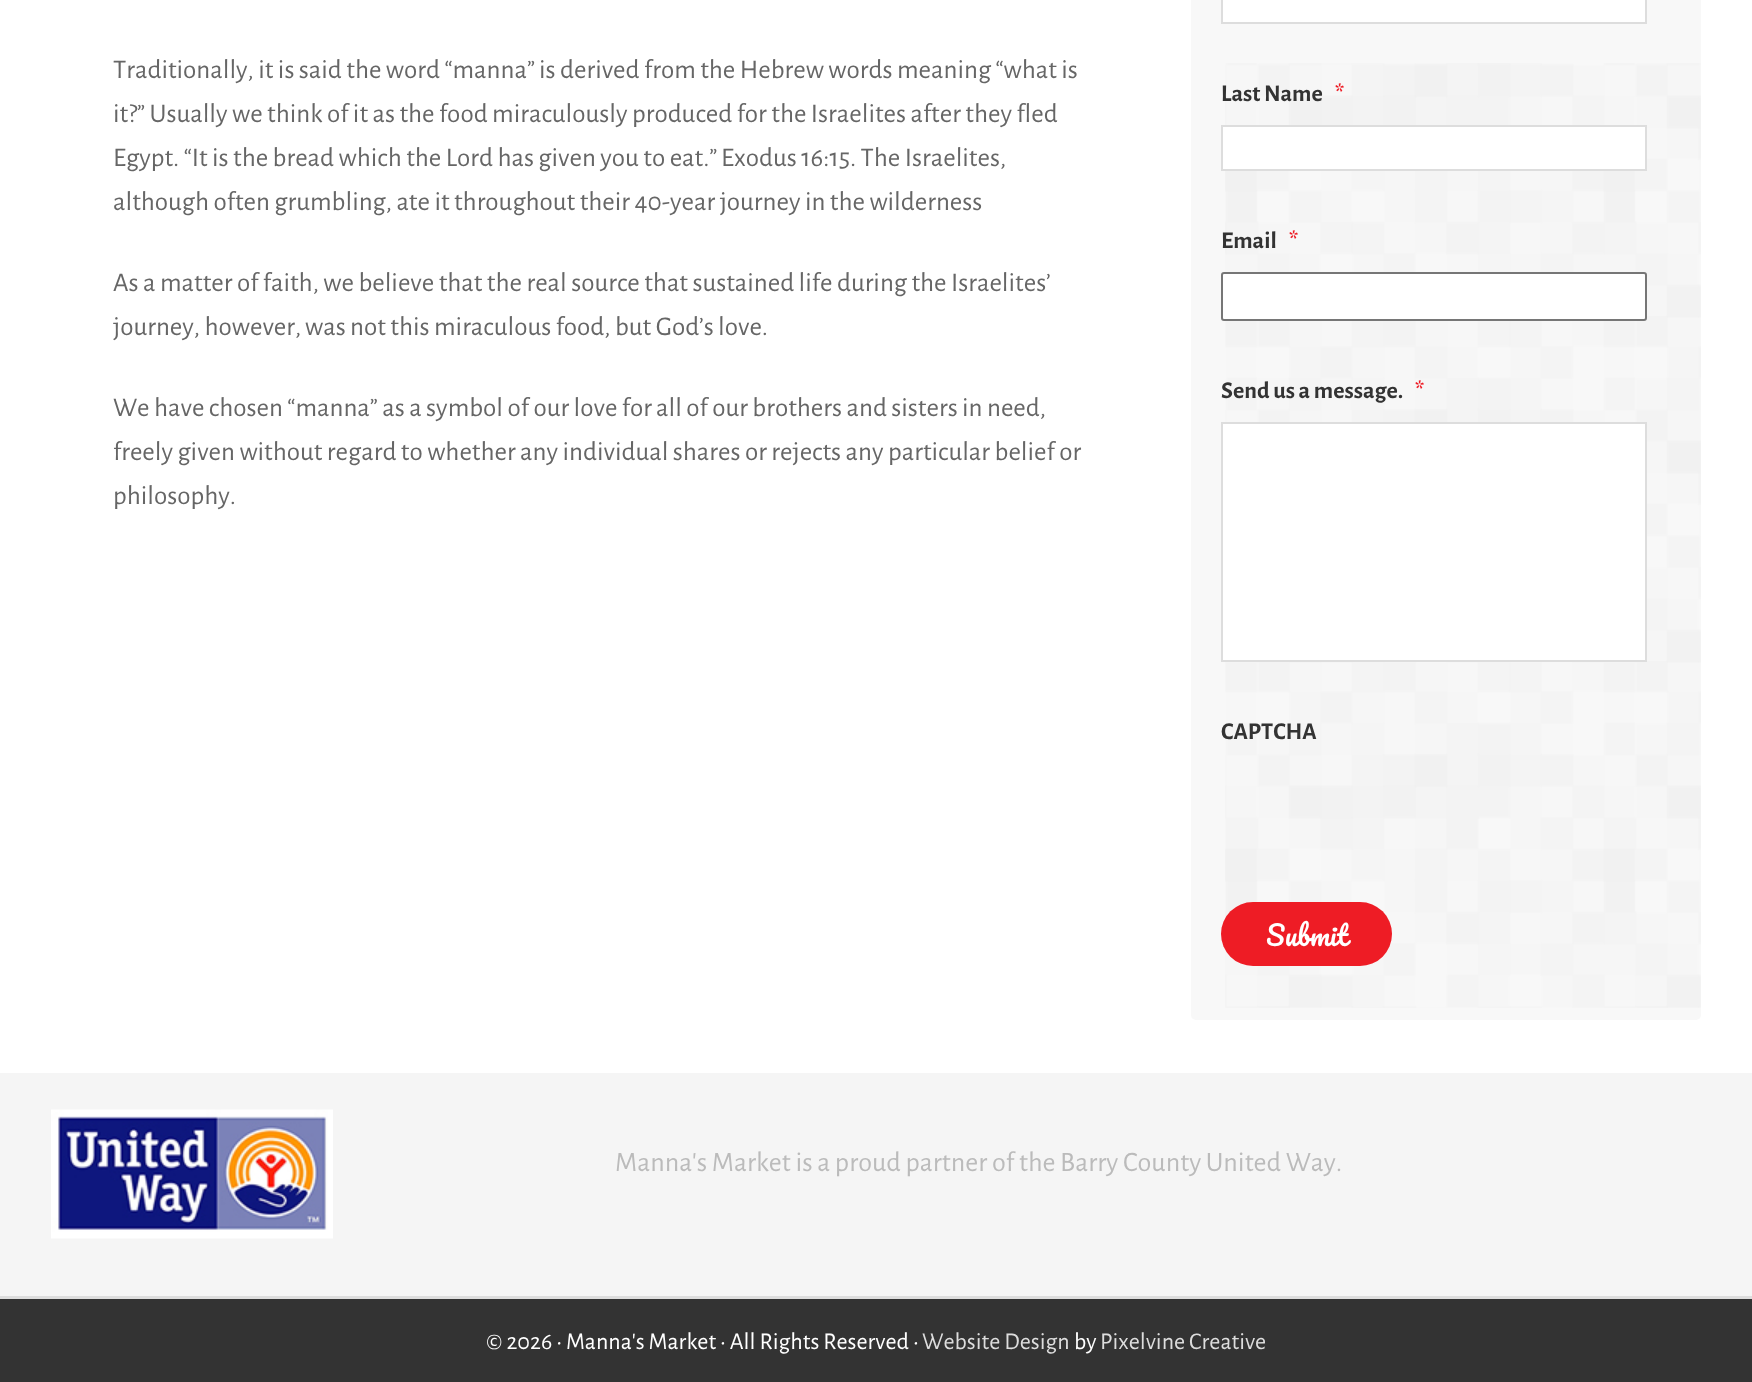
<svg xmlns="http://www.w3.org/2000/svg" width="1752" height="1382" viewBox="0 0 1752 1382">
  <style>*{font-kerning:none!important;font-variant-ligatures:none!important}</style>
  <rect width="100%" height="100%" fill="rgb(255,255,255)"/>
  <g font-family="Alegreya Sans" font-size="27" fill="rgb(102,102,102)">
    <text x="113" y="78">Traditionally, it is said the word “manna”</text>
    <text x="539" y="78">is derived from the Hebrew words meaning “what is</text>
    <text>
      <tspan x="113" y="122">it?” Usually we think of it as the food miraculously produced for the Israelites after they fled</tspan>
      <tspan x="113" y="166">Egypt. “It is the bread which the Lord has given you to eat.”</tspan>
    </text>
    <text x="721" y="166">Exodus 16:15. The Israelites,</text>
    <text x="113" y="210">although often grumbling, ate it throughout their 40-year journey in the wilderness</text>
    <text>
      <tspan x="113" y="291">As a matter of faith, we believe that the real source that sustained life during the Israelites’</tspan>
      <tspan x="113" y="335">journey, however,</tspan>
    </text>
    <text x="305" y="335">was not this miraculous food, but God’s love.</text>
    <text x="113" y="416">We have chosen “manna” as a symbol of our love for</text>
    <text x="656" y="416">all of our brothers and sisters in need,</text>
    <text>
      <tspan x="113" y="460">freely given without regard to whether any individual shares or rejects any particular belief or</tspan>
      <tspan x="113" y="504">philosophy.</tspan>
    </text>
  </g>
  <rect x="1191" y="-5" width="510" height="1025" rx="5" fill="rgb(248,248,248)"/>
  <image x="1225" y="63" width="476" height="945" href="pic1.png"/>
  <rect x="1222" y="-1" width="424" height="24" fill="rgb(255,255,255)" stroke="rgb(221,221,221)" stroke-width="2"/>
  <text x="1221" y="101" font-family="Alegreya Sans" font-size="24" font-weight="bold" fill="rgb(51,51,51)">Last Name</text>
  <text x="1335" y="101" font-family="Alegreya Sans" font-size="24" font-weight="bold" fill="rgb(238,28,37)">*</text>
  <rect x="1222" y="126" width="424" height="44" fill="rgb(255,255,255)" stroke="rgb(221,221,221)" stroke-width="2"/>
  <text x="1221" y="248" font-family="Alegreya Sans" font-size="24" font-weight="bold" fill="rgb(51,51,51)">Email</text>
  <text x="1289" y="248" font-family="Alegreya Sans" font-size="24" font-weight="bold" fill="rgb(238,28,37)">*</text>
  <rect x="1222" y="273" width="424" height="47" rx="2" fill="rgb(255,255,255)" stroke="rgb(118,118,118)" stroke-width="2"/>
  <text x="1221" y="398" font-family="Alegreya Sans" font-size="24" font-weight="bold" fill="rgb(51,51,51)">Send us a message.</text>
  <text x="1415" y="398" font-family="Alegreya Sans" font-size="24" font-weight="bold" fill="rgb(238,28,37)">*</text>
  <rect x="1222" y="423" width="424" height="238" fill="rgb(255,255,255)" stroke="rgb(221,221,221)" stroke-width="2"/>
  <text x="1221" y="739" font-family="Alegreya Sans" font-size="24" font-weight="bold" fill="rgb(51,51,51)">CAPTCHA</text>
  <rect x="1221" y="902" width="171" height="64" rx="32" fill="rgb(238,28,37)"/>
  <text x="1266" y="946" font-family="Pacifico" font-size="27" fill="rgb(255,255,255)">Submit</text>
  <rect x="0" y="1073" width="1752" height="223" fill="rgb(245,245,245)"/>
  <image x="51" y="1109" width="282" height="130" href="pic2.png"/>
  <text x="615" y="1171" font-family="Alegreya Sans" font-size="28.1" fill="rgb(187,187,187)">Manna's Market is a proud partner of the Barry County United Way.</text>
  <rect x="0" y="1299" width="1752" height="83" fill="rgb(51,51,51)"/>
  <rect x="0" y="1296" width="1752" height="3" fill="rgb(221,221,221)"/>
  <text x="486" y="1349" font-family="Alegreya Sans" font-size="24" fill="rgb(255,255,255)">© 2026 • Manna's Market • All Rights Reserved •</text>
  <text x="922" y="1349" font-family="Alegreya Sans" font-size="24" fill="rgb(221,221,221)">Website Design</text>
  <text x="1074" y="1349" font-family="Alegreya Sans" font-size="24" fill="rgb(255,255,255)">by</text>
  <text x="1100" y="1349" font-family="Alegreya Sans" font-size="24" fill="rgb(221,221,221)">Pixelvine Creative</text>
</svg>
